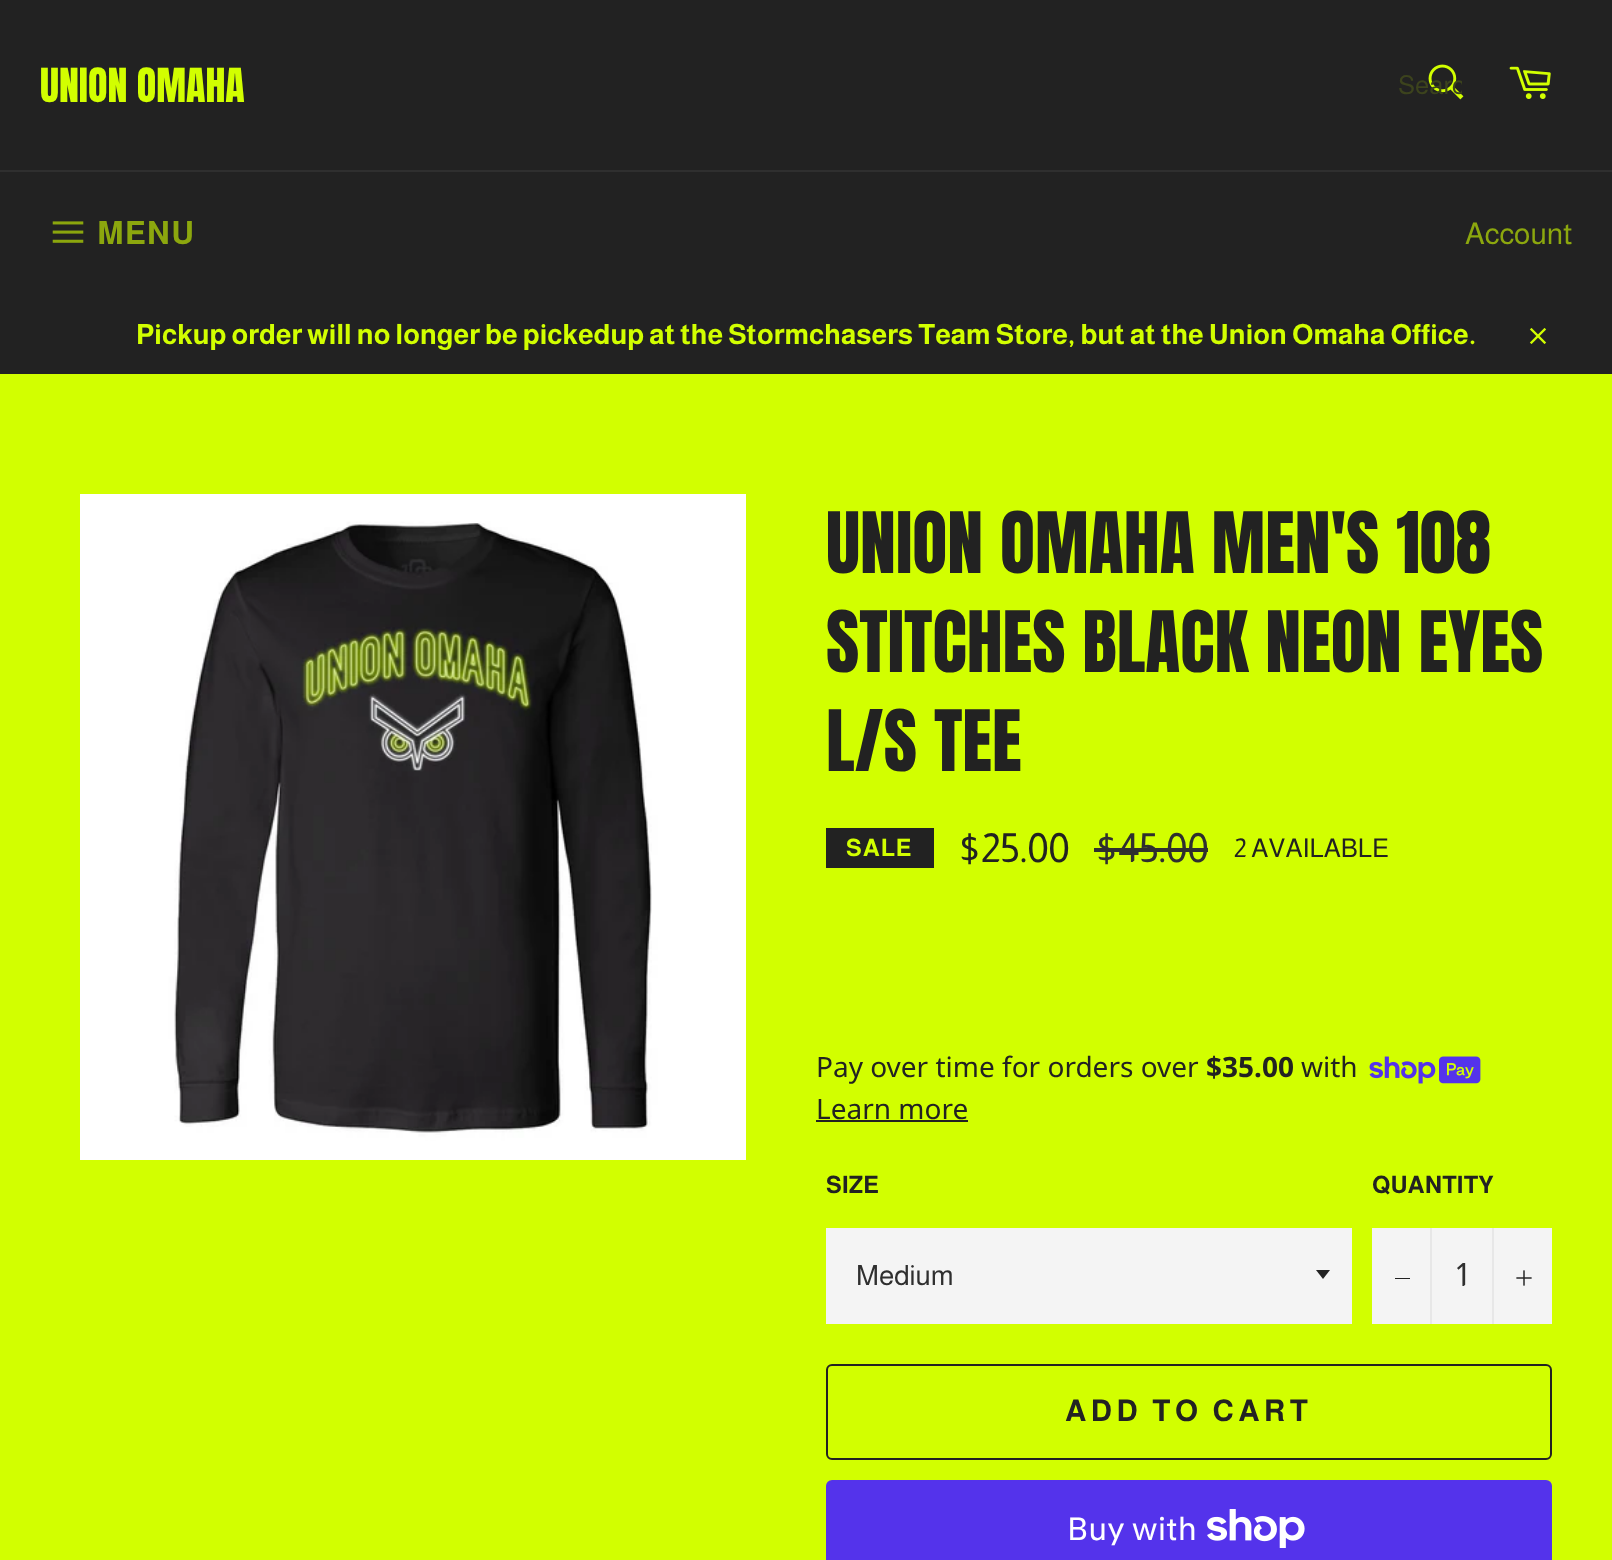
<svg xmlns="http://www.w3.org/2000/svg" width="1612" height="1560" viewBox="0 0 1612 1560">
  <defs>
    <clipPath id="clip1"><rect x="1398" y="70" width="64" height="30"/></clipPath>
  </defs>
  <rect width="100%" height="100%" fill="rgb(210,255,0)"/>
  <rect x="0" y="0" width="1612" height="374" fill="rgb(34,34,34)"/>
  <text x="40" y="102" font-family="Anton" font-size="40" fill="rgb(210,255,0)">UNION OMAHA</text>
  <image x="1428" y="64" width="36" height="36" href="pic1.png"/>
  <g clip-path="url(#clip1)">
    <text x="1398" y="94" font-family="Almarai" font-size="26" fill="rgb(60,67,29)">Searc</text>
  </g>
  <image x="1509" y="66" width="42" height="33" href="pic2.png"/>
  <rect x="0" y="170" width="1612" height="2" fill="rgb(47,47,47)"/>
  <image x="52" y="221" width="32" height="22" href="pic3.png"/>
  <text x="97" y="244" font-family="Almarai" font-size="32" font-weight="bold" letter-spacing="1" fill="rgb(140,167,14)">MENU</text>
  <text x="1465" y="244" font-family="Almarai" font-size="30" fill="rgb(140,167,14)">Account</text>
  <text x="136" y="344" font-family="Almarai" font-size="28" font-weight="bold" fill="rgb(210,255,0)">Pickup order will no longer be pickedup at the Stormchasers Team Store, but at the Union Omaha Office.</text>
  <image x="1529" y="328" width="18" height="16" href="pic4.png"/>
  <image x="80" y="494" width="666" height="666" href="pic5.png"/>
  <g font-family="Anton" font-size="72" fill="rgb(34,34,34)">
    <text>
      <tspan x="826" y="573">UNION OMAHA MEN'S 108</tspan>
      <tspan x="826" y="672">STITCHES BLACK NEON EYES</tspan>
      <tspan x="826" y="771">L/S TEE</tspan>
    </text>
  </g>
  <rect x="826" y="828" width="108" height="40" fill="rgb(34,34,34)"/>
  <text x="846" y="856" font-family="Almarai" font-size="24" font-weight="bold" letter-spacing="1" fill="rgb(210,255,0)">SALE</text>
  <text x="958" y="862" font-family="Almarai" font-size="40" fill="rgb(34,34,34)">$25.00</text>
  <text x="1095" y="862" font-family="Almarai" font-size="40" fill="rgb(47,47,47)">$45.00</text>
  <rect x="1094" y="848" width="114" height="4" fill="rgb(47,47,47)"/>
  <text x="1234" y="857" font-family="Almarai" font-size="26" fill="rgb(34,34,34)">2 AVAILABLE</text>
  <text x="816" y="1077" font-family="Noto Sans" font-size="28" fill="rgb(34,34,34)">Pay over time for orders over</text>
  <text x="1206" y="1077" font-family="Noto Sans" font-size="28" font-weight="bold" fill="rgb(34,34,34)">$35.00</text>
  <text x="1301" y="1077" font-family="Noto Sans" font-size="28" fill="rgb(34,34,34)">with</text>
  <image x="1369" y="1056" width="112" height="28" href="pic6.png"/>
  <text x="816" y="1119" font-family="Noto Sans" font-size="28" fill="rgb(34,34,34)">Learn more</text>
  <rect x="816" y="1120" width="152" height="2" fill="rgb(34,34,34)"/>
  <text x="826" y="1193" font-family="Almarai" font-size="24" font-weight="bold" fill="rgb(34,34,34)">SIZE</text>
  <rect x="826" y="1228" width="526" height="96" fill="rgb(244,244,244)"/>
  <path d="M1316 1270L1323 1279L1330 1270Z" fill="rgb(34,34,34)"/>
  <text x="856" y="1285" font-family="Almarai" font-size="28" fill="rgb(47,47,47)">Medium</text>
  <text x="1372" y="1193" font-family="Almarai" font-size="24" font-weight="bold" fill="rgb(34,34,34)">QUANTITY</text>
  <rect x="1372" y="1228" width="180" height="96" fill="rgb(244,244,244)"/>
  <rect x="1430" y="1228" width="2" height="96" fill="rgb(231,231,231)"/>
  <rect x="1395" y="1278" width="15" height="1" fill="rgb(34,34,34)"/>
  <text x="1456" y="1286" font-family="Almarai" font-size="32" fill="rgb(47,47,47)">1</text>
  <rect x="1492" y="1228" width="2" height="96" fill="rgb(231,231,231)"/>
  <image x="1516" y="1270" width="16" height="16" href="pic7.png"/>
  <rect x="827" y="1365" width="724" height="94" rx="5" fill="none" stroke="rgb(34,34,34)" stroke-width="2"/>
  <text x="1065" y="1421" font-family="Almarai" font-size="30" font-weight="bold" letter-spacing="4.5" fill="rgb(34,34,34)">ADD TO CART</text>
  <rect x="826" y="1480" width="726" height="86" rx="6" fill="rgb(84,51,235)"/>
  <text x="1067" y="1540" font-family="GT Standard" font-size="32" fill="rgb(255,255,255)">Buy with</text>
  <image x="1207" y="1509" width="98" height="39" href="pic8.png"/>
</svg>
